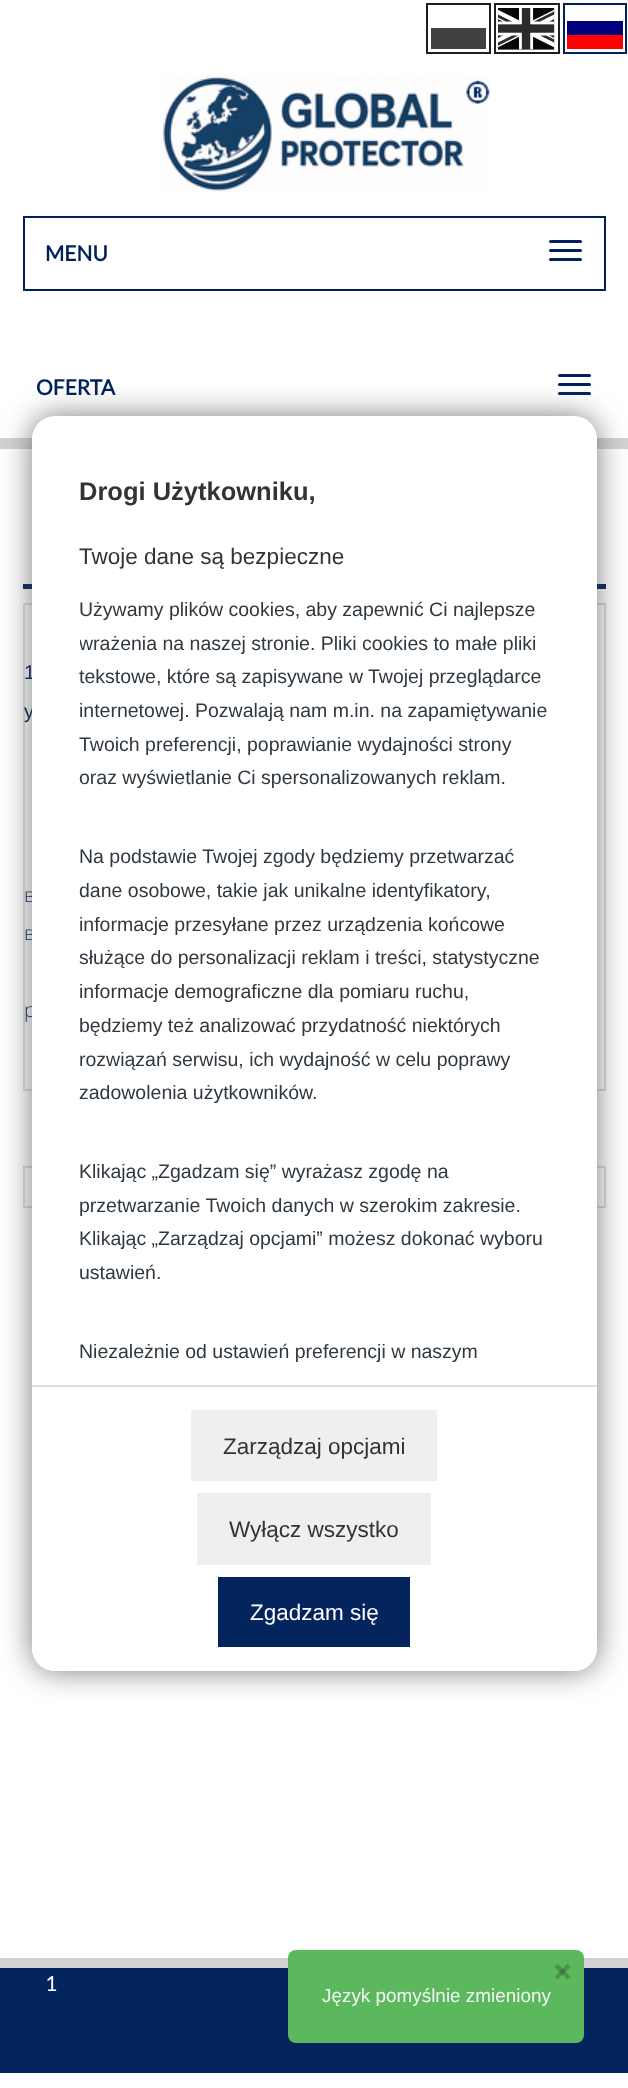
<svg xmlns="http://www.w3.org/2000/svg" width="628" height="2088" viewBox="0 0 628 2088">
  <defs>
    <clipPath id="clip1"><rect x="80" y="464" width="469" height="1084"/></clipPath>
  </defs>
  <rect width="100%" height="100%" fill="rgb(255,255,255)"/>
  <rect x="427" y="4" width="63" height="49" fill="none" stroke="rgb(31,31,31)" stroke-width="2"/>
  <rect x="431" y="28" width="55" height="21" fill="rgb(65,65,65)"/>
  <rect x="495" y="4" width="64" height="49" fill="none" stroke="rgb(31,31,31)" stroke-width="2"/>
  <image x="498" y="8" width="57" height="42" href="pic1.png"/>
  <rect x="564" y="4" width="62" height="49" fill="none" stroke="rgb(0,34,91)" stroke-width="2"/>
  <rect x="567" y="21" width="56" height="14" fill="rgb(1,1,126)"/>
  <rect x="567" y="35" width="56" height="14" fill="rgb(254,1,1)"/>
  <image x="161" y="75" width="329" height="117" href="pic2.png"/>
  <rect x="24" y="217" width="581" height="73" fill="none" stroke="rgb(0,34,91)" stroke-width="2"/>
  <text x="45" y="261" font-family="Lato" font-size="21" font-weight="bold" fill="rgb(0,34,91)">MENU</text>
  <rect x="549" y="240" width="33" height="3" rx="1.5" fill="rgb(0,34,91)"/>
  <rect x="549" y="249" width="33" height="3" rx="1.5" fill="rgb(0,34,91)"/>
  <rect x="549" y="258" width="33" height="3" rx="1.5" fill="rgb(0,34,91)"/>
  <rect x="0" y="438" width="628" height="11" fill="rgb(210,210,210)"/>
  <text x="36" y="395" font-family="Lato" font-size="21" font-weight="bold" fill="rgb(0,34,91)">OFERTA</text>
  <rect x="558" y="374" width="33" height="3" rx="1.5" fill="rgb(0,34,91)"/>
  <rect x="558" y="383" width="33" height="3" rx="1.5" fill="rgb(0,34,91)"/>
  <rect x="558" y="392" width="33" height="3" rx="1.5" fill="rgb(0,34,91)"/>
  <rect x="23" y="584" width="583" height="5" fill="rgb(3,36,93)"/>
  <rect x="24" y="604" width="581" height="486" fill="none" stroke="rgb(221,221,221)" stroke-width="2"/>
  <g font-family="Liberation Sans" font-size="20" fill="rgb(0,34,91)">
    <text>
      <tspan x="24" y="679">1</tspan>
      <tspan x="24" y="718">у</tspan>
    </text>
  </g>
  <g font-family="Open Sans" font-size="20" font-weight="300" fill="rgb(0,34,91)">
    <text>
      <tspan x="24" y="902" word-spacing="-1">в</tspan>
      <tspan x="24" y="940">в</tspan>
    </text>
    <text x="24" y="1017" word-spacing="-1">р</text>
  </g>
  <rect x="24" y="1167" width="581" height="40" fill="none" stroke="rgb(221,221,221)" stroke-width="2"/>
  <rect x="32" y="416" width="565" height="1255" rx="23" fill="rgba(68,68,68,0.7)" filter="blur(15px)"/>
  <rect x="32" y="416" width="565" height="1255" rx="23" fill="rgb(255,255,255)"/>
  <text x="79" y="500" font-family="Liberation Sans" font-size="25.5" font-weight="bold" fill="rgb(51,51,51)">Drogi Użytkowniku,</text>
  <text x="79" y="564" font-family="Liberation Sans" font-size="22.5" fill="rgb(51,51,51)">Twoje dane są bezpieczne</text>
  <text x="79" y="616" font-family="Liberation Sans" font-size="19.5" fill="rgb(48,56,63)">Używamy plików cookies, aby zapewnić Ci najlepsze</text>
  <g clip-path="url(#clip1)">
    <text x="79" y="650" font-family="Liberation Sans" font-size="19.5" fill="rgb(48,56,63)">wrażenia na naszej stronie. Pliki cookies to małe pliki</text>
  </g>
  <g font-family="Liberation Sans" font-size="19.5" fill="rgb(48,56,63)">
    <text>
      <tspan x="79" y="683">tekstowe, które są zapisywane w Twojej przeglądarce</tspan>
      <tspan x="79" y="717">internetowej. Pozwalają nam m.in. na zapamiętywanie</tspan>
      <tspan x="79" y="751">Twoich preferencji, poprawianie wydajności strony</tspan>
      <tspan x="79" y="784">oraz wyświetlanie Ci spersonalizowanych reklam.</tspan>
    </text>
    <text>
      <tspan x="79" y="863">Na podstawie Twojej zgody będziemy przetwarzać</tspan>
      <tspan x="79" y="897">dane osobowe, takie jak unikalne identyfikatory,</tspan>
      <tspan x="79" y="931">informacje przesyłane przez urządzenia końcowe</tspan>
      <tspan x="79" y="964">służące do personalizacji reklam i treści, statystyczne</tspan>
      <tspan x="79" y="998">informacje demograficzne dla pomiaru ruchu,</tspan>
      <tspan x="79" y="1032">będziemy też analizować przydatność niektórych</tspan>
      <tspan x="79" y="1066">rozwiązań serwisu, ich wydajność w celu poprawy</tspan>
      <tspan x="79" y="1099">zadowolenia użytkowników.</tspan>
    </text>
    <text>
      <tspan x="79" y="1178">Klikając „Zgadzam się” wyrażasz zgodę na</tspan>
      <tspan x="79" y="1212">przetwarzanie Twoich danych w szerokim zakresie.</tspan>
      <tspan x="79" y="1245">Klikając „Zarządzaj opcjami” możesz dokonać wyboru</tspan>
      <tspan x="79" y="1279">ustawień.</tspan>
    </text>
    <text x="79" y="1358">Niezależnie od ustawień preferencji w naszym</text>
  </g>
  <path d="M32 1385H597V1648C597 1660.5 586.5 1671 574 1671H55C42.5 1671 32 1660.5 32 1648Z" fill="rgb(255,255,255)"/>
  <rect x="32" y="1385" width="565" height="2" fill="rgb(221,221,221)"/>
  <rect x="191" y="1410" width="246" height="71" fill="rgb(239,239,239)"/>
  <text x="223" y="1454" font-family="Liberation Sans" font-size="22.5" fill="rgb(51,51,51)">Zarządzaj opcjami</text>
  <rect x="197" y="1493" width="234" height="72" fill="rgb(239,239,239)"/>
  <text x="229" y="1537" font-family="Liberation Sans" font-size="22.5" fill="rgb(51,51,51)">Wyłącz wszystko</text>
  <rect x="218" y="1577" width="192" height="70" fill="rgb(3,36,93)"/>
  <text x="250" y="1620" font-family="Liberation Sans" font-size="22.5" fill="rgb(255,255,255)">Zgadzam się</text>
  <rect x="0" y="1968" width="628" height="105" fill="rgb(3,36,93)"/>
  <rect x="0" y="1958" width="628" height="10" fill="rgb(210,210,210)"/>
  <text x="45" y="1991" font-family="Lato" font-size="21" fill="rgb(255,255,255)">1</text>
  <rect x="288" y="1950" width="296" height="93" rx="8" fill="rgb(92,184,92)"/>
  <path d="M567.5 1963.5L570.5 1967L557.5 1979.5L554.5 1976.5Z" fill="rgb(74,147,74)"/>
  <path d="M554.5 1967L557.5 1963.5L570.5 1976.5L567.5 1979.5Z" fill="rgba(0,0,0,0.2)"/>
  <text x="322" y="2002" font-family="Liberation Sans" font-size="18.9" fill="rgb(242,248,247)">Język pomyślnie zmieniony</text>
</svg>
